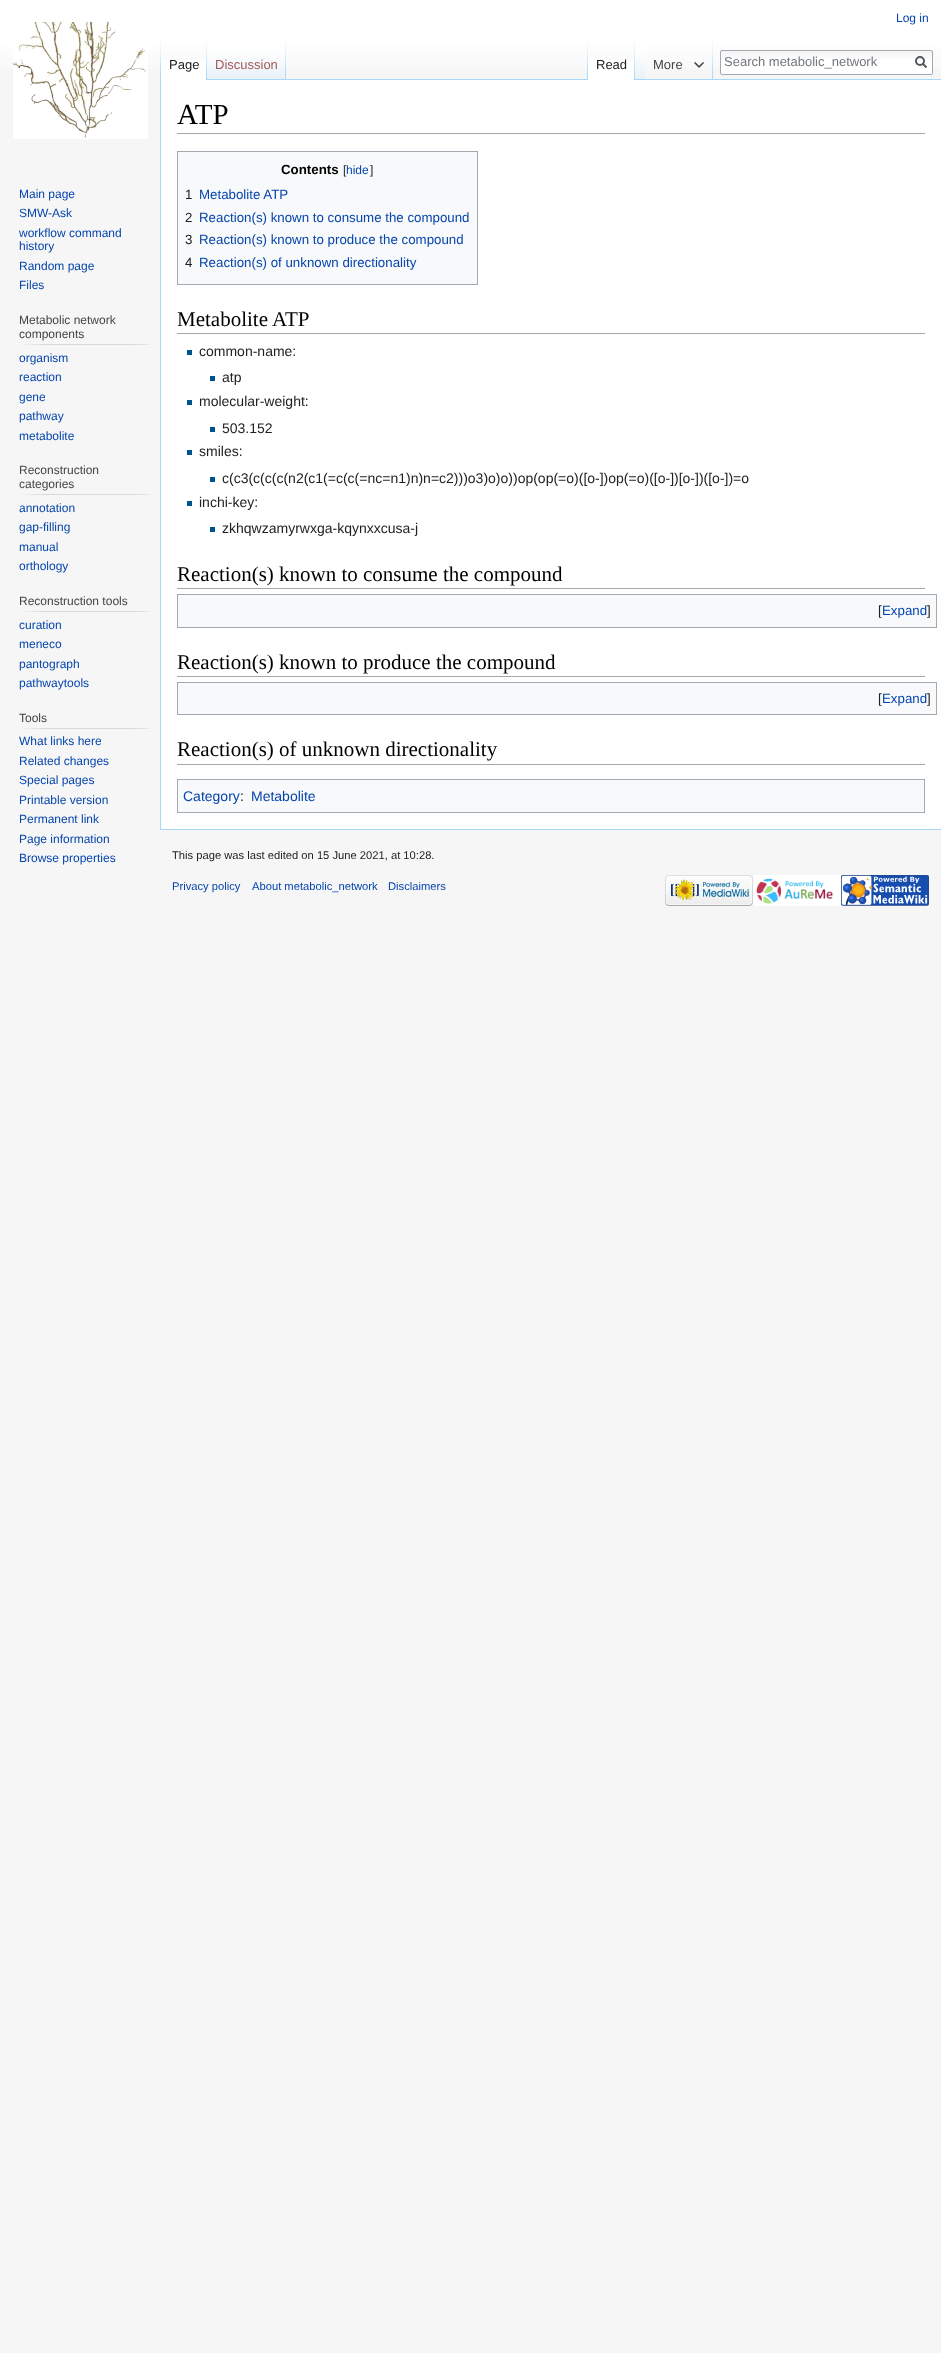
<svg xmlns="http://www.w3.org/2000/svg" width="941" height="2353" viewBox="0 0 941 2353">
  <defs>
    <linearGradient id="g1" gradientUnits="userSpaceOnUse" x1="471" y1="0" x2="471" y2="80"><stop offset="0.5" stop-color="rgb(255,255,255)"/><stop offset="1" stop-color="rgb(246,246,246)"/></linearGradient>
  </defs>
  <rect width="100%" height="100%" fill="rgb(246,246,246)"/>
  <rect x="0" y="0" width="941" height="69" fill="url(#g1)"/>
  <text x="896" y="22" font-family="Liberation Sans" font-size="12" fill="rgb(6,69,173)">Log in</text>
  <image x="160" y="40" width="1" height="39" href="pic1.png"/>
  <rect x="161" y="60" width="45" height="20" fill="rgb(255,255,255)"/>
  <image x="206" y="40" width="1" height="40" href="pic2.png"/>
  <text x="169" y="69" font-family="Liberation Sans" font-size="13" fill="rgb(34,34,34)">Page</text>
  <image x="207" y="40" width="78" height="39" href="pic3.png"/>
  <image x="285" y="40" width="1" height="39" href="pic1.png"/>
  <text x="215" y="69" font-family="Liberation Sans" font-size="13" fill="rgb(165,88,88)">Discussion</text>
  <image x="587" y="40" width="1" height="39" href="pic1.png"/>
  <rect x="207" y="79" width="734" height="1" fill="rgb(167,215,249)"/>
  <rect x="588" y="60" width="46" height="20" fill="rgb(255,255,255)"/>
  <image x="634" y="40" width="1" height="40" href="pic2.png"/>
  <text x="596" y="69" font-family="Liberation Sans" font-size="13" fill="rgb(34,34,34)">Read</text>
  <image x="635" y="40" width="10" height="39" href="pic4.png"/>
  <image x="712" y="40" width="1" height="39" href="pic1.png"/>
  <text x="653" y="69" font-family="Liberation Sans" font-size="13" fill="rgb(68,68,68)">More</text>
  <image x="694" y="62" width="10" height="6" href="pic5.png"/>
  <rect x="720" y="50" width="213" height="25" rx="2" fill="rgb(255,255,255)"/>
  <image x="720" y="51" width="213" height="8" href="pic6.png"/>
  <rect x="720.5" y="50.5" width="212" height="24" rx="1.5" fill="none" stroke="rgb(162,169,177)"/>
  <text x="724" y="66" font-family="Liberation Sans" font-size="13" fill="rgb(114,119,125)">Search metabolic_network</text>
  <path d="M926.5 67.5L922.5 63.5" fill="none" stroke="rgb(84,89,93)" stroke-width="2"/>
  <circle cx="920" cy="61" r="4" fill="none" stroke="rgb(84,89,93)" stroke-width="2"/>
  <image x="13" y="22" width="135" height="117" href="pic7.png"/>
  <g font-family="Liberation Sans" font-size="12" fill="rgb(6,69,173)">
    <text>
      <tspan x="19" y="198">Main page</tspan>
      <tspan x="19" y="217">SMW-Ask</tspan>
      <tspan x="19" y="237">workflow command</tspan>
      <tspan x="19" y="250">history</tspan>
      <tspan x="19" y="270">Random page</tspan>
      <tspan x="19" y="289">Files</tspan>
    </text>
  </g>
  <g font-family="Liberation Sans" font-size="12" fill="rgb(68,68,68)">
    <text>
      <tspan x="19" y="324">Metabolic network</tspan>
      <tspan x="19" y="338">components</tspan>
    </text>
  </g>
  <image x="22" y="344" width="128" height="1" href="pic8.png"/>
  <g font-family="Liberation Sans" font-size="12" fill="rgb(6,69,173)">
    <text>
      <tspan x="19" y="362">organism</tspan>
      <tspan x="19" y="381">reaction</tspan>
      <tspan x="19" y="401">gene</tspan>
      <tspan x="19" y="420">pathway</tspan>
      <tspan x="19" y="440">metabolite</tspan>
    </text>
  </g>
  <g font-family="Liberation Sans" font-size="12" fill="rgb(68,68,68)">
    <text>
      <tspan x="19" y="474">Reconstruction</tspan>
      <tspan x="19" y="488">categories</tspan>
    </text>
  </g>
  <image x="22" y="494" width="128" height="1" href="pic8.png"/>
  <g font-family="Liberation Sans" font-size="12" fill="rgb(6,69,173)">
    <text>
      <tspan x="19" y="512">annotation</tspan>
      <tspan x="19" y="531">gap-filling</tspan>
      <tspan x="19" y="551">manual</tspan>
      <tspan x="19" y="570">orthology</tspan>
    </text>
  </g>
  <text x="19" y="605" font-family="Liberation Sans" font-size="12" fill="rgb(68,68,68)">Reconstruction tools</text>
  <image x="22" y="611" width="128" height="1" href="pic8.png"/>
  <g font-family="Liberation Sans" font-size="12" fill="rgb(6,69,173)">
    <text>
      <tspan x="19" y="629">curation</tspan>
      <tspan x="19" y="648">meneco</tspan>
      <tspan x="19" y="668">pantograph</tspan>
      <tspan x="19" y="687">pathwaytools</tspan>
    </text>
  </g>
  <text x="19" y="722" font-family="Liberation Sans" font-size="12" fill="rgb(68,68,68)">Tools</text>
  <image x="22" y="728" width="128" height="1" href="pic8.png"/>
  <g font-family="Liberation Sans" font-size="12" fill="rgb(6,69,173)">
    <text>
      <tspan x="19" y="745">What links here</tspan>
      <tspan x="19" y="765">Related changes</tspan>
      <tspan x="19" y="784">Special pages</tspan>
      <tspan x="19" y="804">Printable version</tspan>
      <tspan x="19" y="823">Permanent link</tspan>
      <tspan x="19" y="843">Page information</tspan>
      <tspan x="19" y="862">Browse properties</tspan>
    </text>
  </g>
  <rect x="161" y="80" width="780" height="749" fill="rgb(255,255,255)"/>
  <rect x="160" y="829" width="781" height="1" fill="rgb(167,215,249)"/>
  <rect x="160" y="79" width="1" height="751" fill="rgb(167,215,249)"/>
  <rect x="177" y="133" width="748" height="1" fill="rgb(162,169,177)"/>
  <text x="177" y="124" font-family="Liberation Serif" font-size="29" fill="rgb(0,0,0)">ATP</text>
  <rect x="177.5" y="151.5" width="300" height="133" fill="rgb(248,249,250)" stroke="rgb(162,169,177)"/>
  <text x="281" y="174" font-family="Liberation Sans" font-size="13.3" font-weight="bold" fill="rgb(0,0,0)">Contents</text>
  <text x="343" y="174" font-family="Liberation Sans" font-size="12" fill="rgb(34,34,34)">[</text>
  <text x="346" y="174" font-family="Liberation Sans" font-size="12" fill="rgb(6,69,173)">hide</text>
  <text x="370" y="174" font-family="Liberation Sans" font-size="12" fill="rgb(34,34,34)">]</text>
  <text x="185" y="199" font-family="Liberation Sans" font-size="13.3" fill="rgb(34,34,34)">1</text>
  <text x="199" y="199" font-family="Liberation Sans" font-size="13.3" fill="rgb(6,69,173)">Metabolite ATP</text>
  <text x="185" y="222" font-family="Liberation Sans" font-size="13.3" fill="rgb(34,34,34)">2</text>
  <text x="199" y="222" font-family="Liberation Sans" font-size="13.3" fill="rgb(6,69,173)">Reaction(s) known to consume the compound</text>
  <text x="185" y="244" font-family="Liberation Sans" font-size="13.3" fill="rgb(34,34,34)">3</text>
  <text x="199" y="244" font-family="Liberation Sans" font-size="13.3" fill="rgb(6,69,173)">Reaction(s) known to produce the compound</text>
  <text x="185" y="267" font-family="Liberation Sans" font-size="13.3" fill="rgb(34,34,34)">4</text>
  <text x="199" y="267" font-family="Liberation Sans" font-size="13.3" fill="rgb(6,69,173)">Reaction(s) of unknown directionality</text>
  <rect x="177" y="333" width="748" height="1" fill="rgb(162,169,177)"/>
  <text x="177" y="326" font-family="Liberation Serif" font-size="21" fill="rgb(0,0,0)">Metabolite ATP</text>
  <rect x="187" y="350" width="5" height="5" fill="rgb(0,82,140)"/>
  <text x="199" y="356" font-family="Liberation Sans" font-size="14" fill="rgb(34,34,34)">common-name:</text>
  <rect x="210" y="376" width="5" height="5" fill="rgb(0,82,140)"/>
  <text x="222" y="382" font-family="Liberation Sans" font-size="14" fill="rgb(34,34,34)">atp</text>
  <rect x="187" y="400" width="5" height="5" fill="rgb(0,82,140)"/>
  <text x="199" y="406" font-family="Liberation Sans" font-size="14" fill="rgb(34,34,34)">molecular-weight:</text>
  <rect x="210" y="427" width="5" height="5" fill="rgb(0,82,140)"/>
  <text x="222" y="433" font-family="Liberation Sans" font-size="14" fill="rgb(34,34,34)">503.152</text>
  <rect x="187" y="450" width="5" height="5" fill="rgb(0,82,140)"/>
  <text x="199" y="456" font-family="Liberation Sans" font-size="14" fill="rgb(34,34,34)">smiles:</text>
  <rect x="210" y="477" width="5" height="5" fill="rgb(0,82,140)"/>
  <text x="222" y="483" font-family="Liberation Sans" font-size="14" fill="rgb(34,34,34)">c(c3(c(c(c(n2(c1(=c(c(=nc=n1)n)n=c2)))o3)o)o))op(op(=o)([o-])op(=o)([o-])[o-])([o-])=o</text>
  <rect x="187" y="501" width="5" height="5" fill="rgb(0,82,140)"/>
  <text x="199" y="507" font-family="Liberation Sans" font-size="14" fill="rgb(34,34,34)">inchi-key:</text>
  <rect x="210" y="527" width="5" height="5" fill="rgb(0,82,140)"/>
  <text x="222" y="533" font-family="Liberation Sans" font-size="14" fill="rgb(34,34,34)">zkhqwzamyrwxga-kqynxxcusa-j</text>
  <rect x="177" y="588" width="748" height="1" fill="rgb(162,169,177)"/>
  <text x="177" y="581" font-family="Liberation Serif" font-size="21" fill="rgb(0,0,0)">Reaction(s) known to consume the compound</text>
  <rect x="177.5" y="594.5" width="759" height="33" fill="rgb(248,249,250)" stroke="rgb(162,169,177)"/>
  <text x="878" y="615" font-family="Liberation Sans" font-size="13.3" fill="rgb(34,34,34)">[</text>
  <text x="882" y="615" font-family="Liberation Sans" font-size="13.3" fill="rgb(6,69,173)">Expand</text>
  <text x="927" y="615" font-family="Liberation Sans" font-size="13.3" fill="rgb(34,34,34)">]</text>
  <rect x="177" y="676" width="748" height="1" fill="rgb(162,169,177)"/>
  <text x="177" y="669" font-family="Liberation Serif" font-size="21" fill="rgb(0,0,0)">Reaction(s) known to produce the compound</text>
  <rect x="177.5" y="682.5" width="759" height="32" fill="rgb(248,249,250)" stroke="rgb(162,169,177)"/>
  <text x="878" y="703" font-family="Liberation Sans" font-size="13.3" fill="rgb(34,34,34)">[</text>
  <text x="882" y="703" font-family="Liberation Sans" font-size="13.3" fill="rgb(6,69,173)">Expand</text>
  <text x="927" y="703" font-family="Liberation Sans" font-size="13.3" fill="rgb(34,34,34)">]</text>
  <rect x="177" y="764" width="748" height="1" fill="rgb(162,169,177)"/>
  <text x="177" y="756" font-family="Liberation Serif" font-size="21" fill="rgb(0,0,0)">Reaction(s) of unknown directionality</text>
  <rect x="177.5" y="779.5" width="747" height="33" fill="rgb(248,249,250)" stroke="rgb(162,169,177)"/>
  <text x="183" y="801" font-family="Liberation Sans" font-size="14" fill="rgb(6,69,173)">Category</text>
  <text x="240" y="801" font-family="Liberation Sans" font-size="14" fill="rgb(34,34,34)">:</text>
  <text x="251" y="801" font-family="Liberation Sans" font-size="14" fill="rgb(6,69,173)">Metabolite</text>
  <text x="172" y="859" font-family="Liberation Sans" font-size="11.2" fill="rgb(34,34,34)">This page was last edited on 15 June 2021, at 10:28.</text>
  <g font-family="Liberation Sans" font-size="11.2" fill="rgb(6,69,173)">
    <text x="172" y="890">Privacy policy</text>
    <text x="252" y="890">About metabolic_network</text>
    <text x="388" y="890">Disclaimers</text>
  </g>
  <image x="665" y="875" width="88" height="31" href="pic9.png"/>
  <image x="753" y="875" width="88" height="31" href="pic10.png"/>
  <image x="841" y="875" width="88" height="31" href="pic11.png"/>
</svg>
